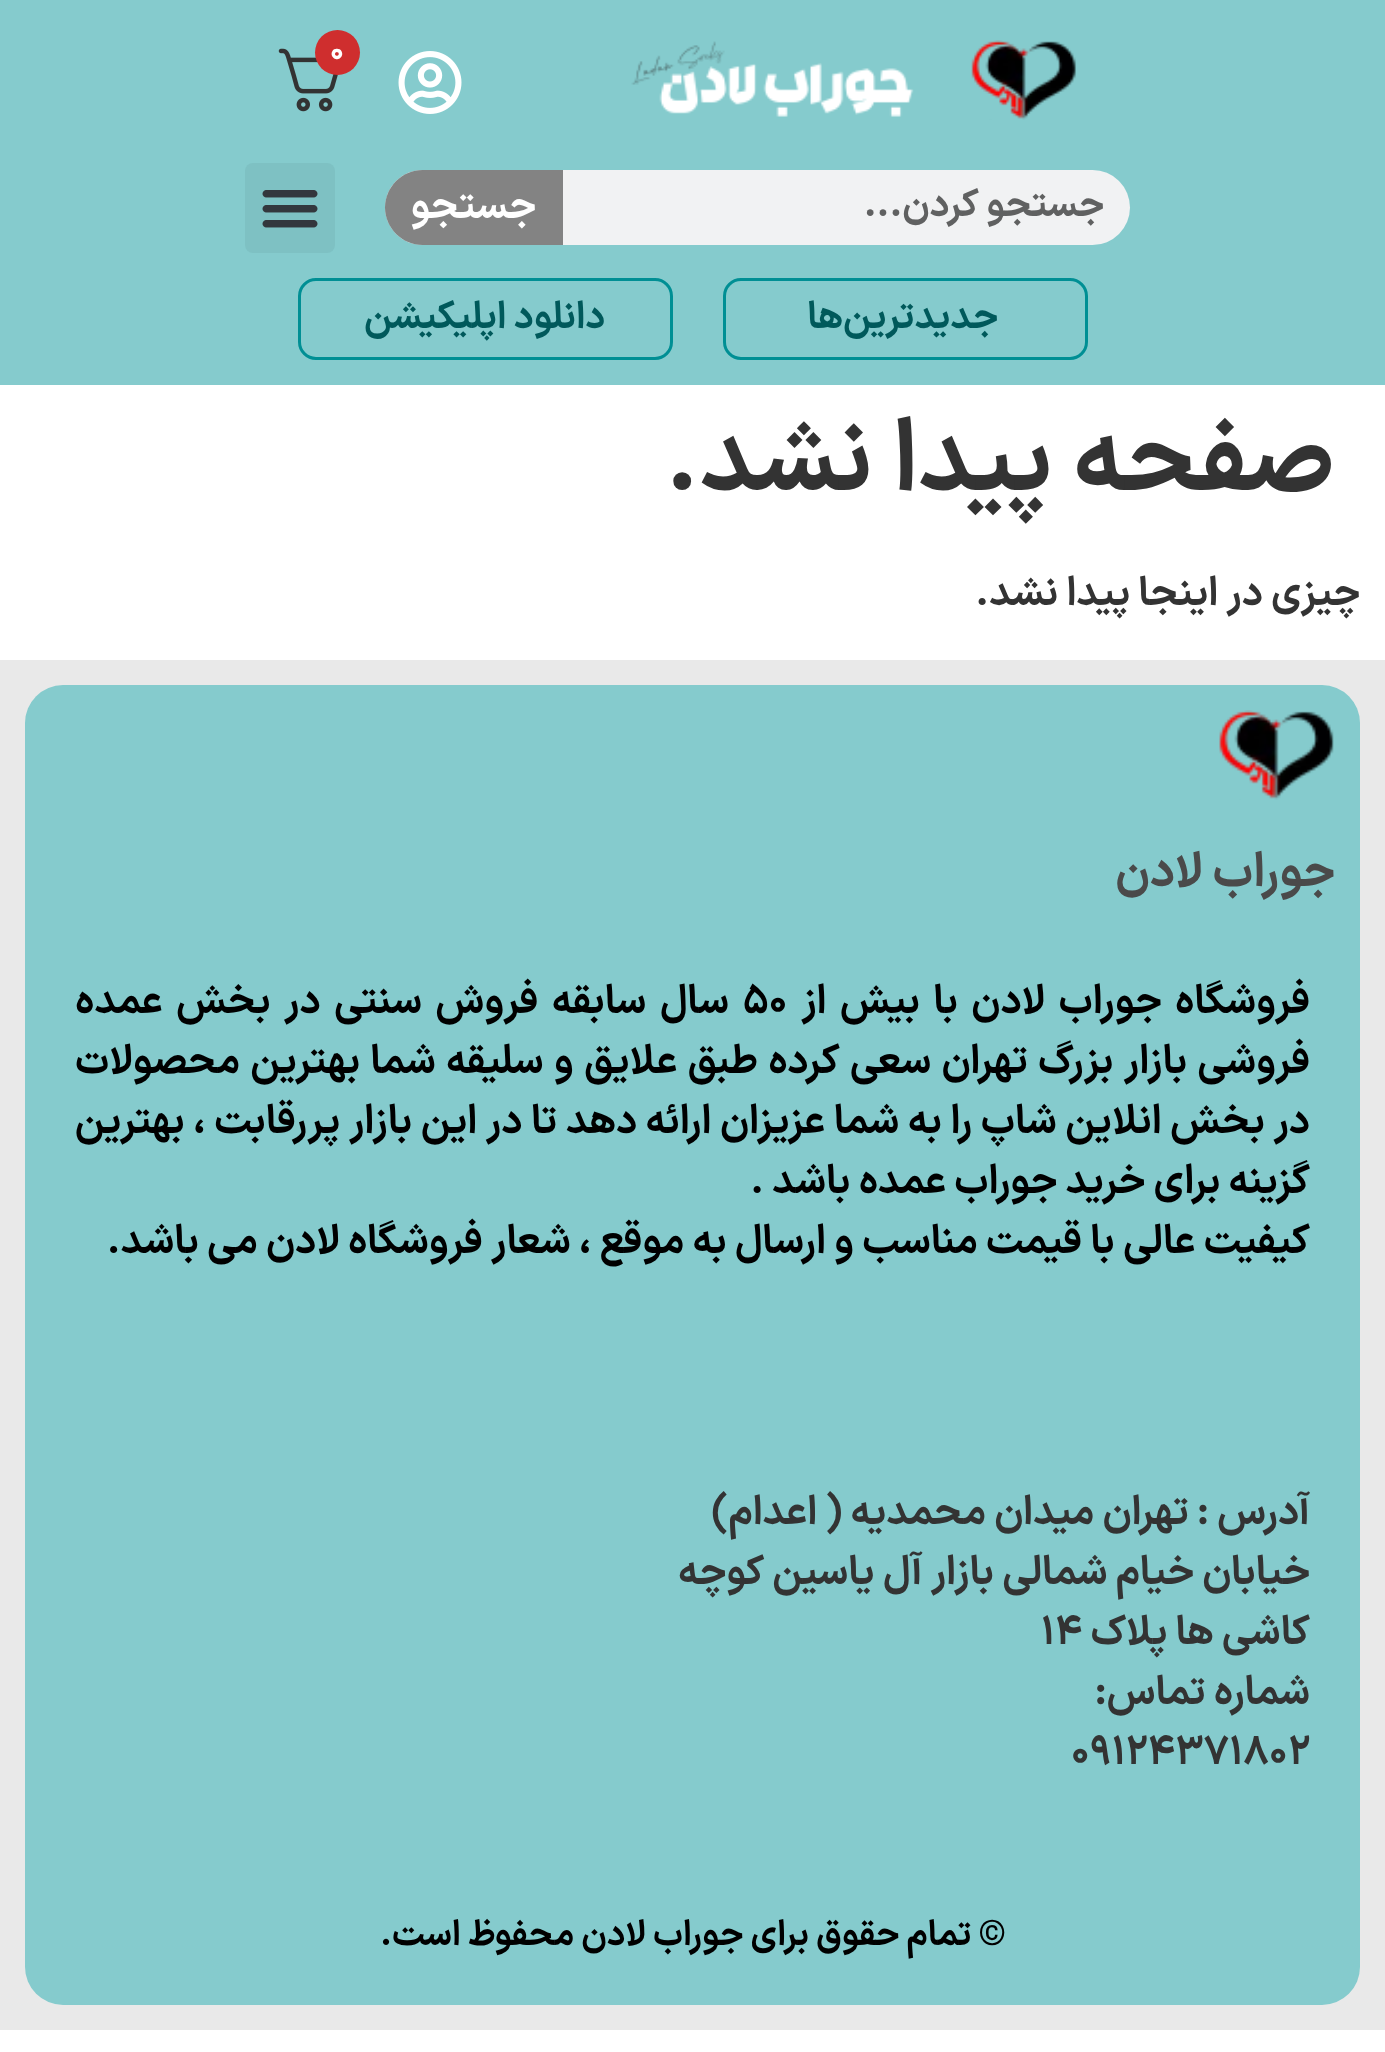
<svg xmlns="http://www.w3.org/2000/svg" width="1385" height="2052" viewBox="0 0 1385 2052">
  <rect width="100%" height="100%" fill="rgb(255,255,255)"/>
  <rect x="0" y="0" width="1385" height="385" fill="rgb(133,203,205)"/>
  <image x="971" y="40" width="105" height="80" href="pic1.png"/>
  <image x="631" y="41" width="283" height="76" href="pic2.png"/>
  <image x="398" y="51" width="64" height="63" href="pic3.png"/>
  <image x="278" y="48" width="60" height="64" href="pic4.png"/>
  <circle cx="337.5" cy="52.5" r="22.5" fill="rgb(207,46,46)"/>
  <text x="330" y="60" font-family="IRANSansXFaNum" font-size="30" font-weight="bold" fill="rgb(255,255,255)">0</text>
  <rect x="385" y="170" width="745" height="75" rx="37.5" fill="rgb(241,242,243)"/>
  <text x="1104" y="216" font-family="IRANSansXFaNum" font-size="37.5" font-weight="bold" direction="rtl" fill="rgb(96,97,97)">جستجو کردن...</text>
  <path d="M422.5 170H563V245H422.5C402 245 385 228 385 207.5C385 187 402 170 422.5 170Z" fill="rgb(131,131,131)"/>
  <text x="536" y="218" font-family="IRANSansXFaNum" font-size="40" font-weight="bold" direction="rtl" fill="rgb(255,255,255)">جستجو</text>
  <rect x="245" y="163" width="90" height="90" rx="8" fill="rgb(126,193,195)"/>
  <image x="262" y="190" width="56" height="38" href="pic5.png"/>
  <rect x="724.5" y="279.5" width="362" height="79" rx="16.5" fill="none" stroke="rgb(0,143,148)" stroke-width="3"/>
  <text x="998" y="328" font-family="IRANSansXFaNum" font-size="37.5" font-weight="bold" direction="rtl" fill="rgb(0,89,91)">جدیدترین‌ها</text>
  <rect x="299.5" y="279.5" width="372" height="79" rx="16.5" fill="none" stroke="rgb(0,143,148)" stroke-width="3"/>
  <text x="605" y="328" font-family="IRANSansXFaNum" font-size="37.5" font-weight="bold" direction="rtl" fill="rgb(0,89,91)">دانلود اپلیکیشن</text>
  <text x="1335" y="490" font-family="IRANSansXFaNum" font-size="100" font-weight="bold" direction="rtl" fill="rgb(51,51,51)">صفحه پیدا نشد.</text>
  <text x="1360" y="605" font-family="IRANSansXFaNum" font-size="40" font-weight="bold" direction="rtl" fill="rgb(51,51,51)">چیزی در اینجا پیدا نشد.</text>
  <rect x="0" y="660" width="1385" height="1370" fill="rgb(233,233,233)"/>
  <rect x="25" y="685" width="1335" height="1320" rx="38" fill="rgb(133,203,205)"/>
  <image x="1219" y="710" width="115" height="90" href="pic6.png"/>
  <text x="1335" y="886" font-family="IRANSansXFaNum" font-size="47.5" font-weight="bold" direction="rtl" fill="rgb(74,74,74)">جوراب لادن</text>
  <text x="1310" y="1013" word-spacing="5.25" font-family="IRANSansXFaNum" font-size="40" font-weight="bold" direction="rtl" fill="rgb(0,0,0)">فروشگاه جوراب لادن با بیش از</text>
  <text x="743" y="1013" font-family="IRANSansXFaNum" font-size="40" font-weight="bold" fill="rgb(0,0,0)">۵۰</text>
  <g font-family="IRANSansXFaNum" font-size="40" font-weight="bold" direction="rtl" fill="rgb(0,0,0)">
    <text x="729" y="1013" word-spacing="5.25">سال سابقه فروش سنتی در بخش عمده</text>
    <text>
      <tspan x="1310" y="1073" word-spacing="2">فروشی بازار بزرگ تهران سعی کرده طبق علایق و سلیقه شما بهترین محصولات</tspan>
      <tspan x="1310" y="1133" word-spacing="0.4">در بخش انلاین شاپ را به شما عزیزان ارائه دهد تا در این بازار پررقابت ، بهترین</tspan>
      <tspan x="1310" y="1193">گزینه برای خرید جوراب عمده باشد .</tspan>
      <tspan x="1310" y="1253">کیفیت عالی با قیمت مناسب و ارسال به موقع ، شعار فروشگاه لادن می باشد.</tspan>
    </text>
  </g>
  <g font-family="IRANSansXFaNum" font-size="40" font-weight="bold" direction="rtl" fill="rgb(51,51,51)">
    <text>
      <tspan x="1310" y="1524">آدرس : تهران میدان محمدیه ( اعدام)</tspan>
      <tspan x="1310" y="1584">خیابان خیام شمالی بازار آل یاسین کوچه</tspan>
      <tspan x="1310" y="1644">کاشی ها پلاک</tspan>
    </text>
  </g>
  <text x="1041" y="1644" font-family="IRANSansXFaNum" font-size="40" font-weight="bold" fill="rgb(51,51,51)">۱۴</text>
  <text x="1310" y="1704" font-family="IRANSansXFaNum" font-size="40" font-weight="bold" direction="rtl" fill="rgb(51,51,51)">شماره تماس:</text>
  <text x="1071" y="1764" font-family="IRANSansXFaNum" font-size="40" font-weight="bold" fill="rgb(51,51,51)">۰۹۱۲۴۳۷۱۸۰۲</text>
  <text x="1006" y="1945" font-family="IRANSansXFaNum" font-size="35" font-weight="bold" direction="rtl" fill="rgb(0,0,0)">© تمام حقوق برای جوراب لادن محفوظ است.</text>
</svg>
